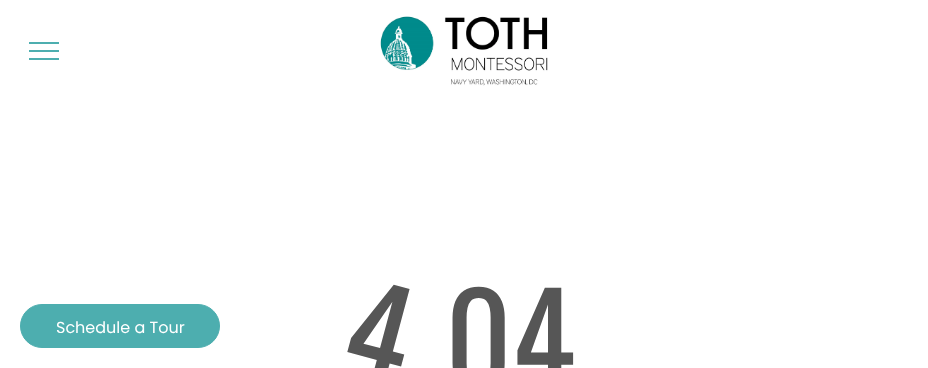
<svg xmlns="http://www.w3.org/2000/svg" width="928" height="368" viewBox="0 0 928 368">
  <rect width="100%" height="100%" fill="rgb(255,255,255)"/>
  <rect x="29" y="42" width="30" height="2" fill="rgb(77,174,175)"/>
  <rect x="29" y="50" width="30" height="2" fill="rgb(77,174,175)"/>
  <rect x="29" y="58" width="30" height="2" fill="rgb(77,174,175)"/>
  <image x="380" y="16" width="168" height="70" href="pic1.png"/>
  <rect x="20.5" y="304.5" width="199" height="43" rx="21.5" fill="rgb(77,174,175)" stroke="rgb(77,174,175)"/>
  <text x="56" y="333" font-family="Poppins" font-size="16" fill="rgb(255,255,255)">Schedule a Tour</text>
  <g font-family="Oswald" font-size="130" fill="rgb(86,86,86)">
    <text x="335" y="378" transform="rotate(15 335 378)">4</text>
    <text x="445" y="393">04</text>
  </g>
</svg>
